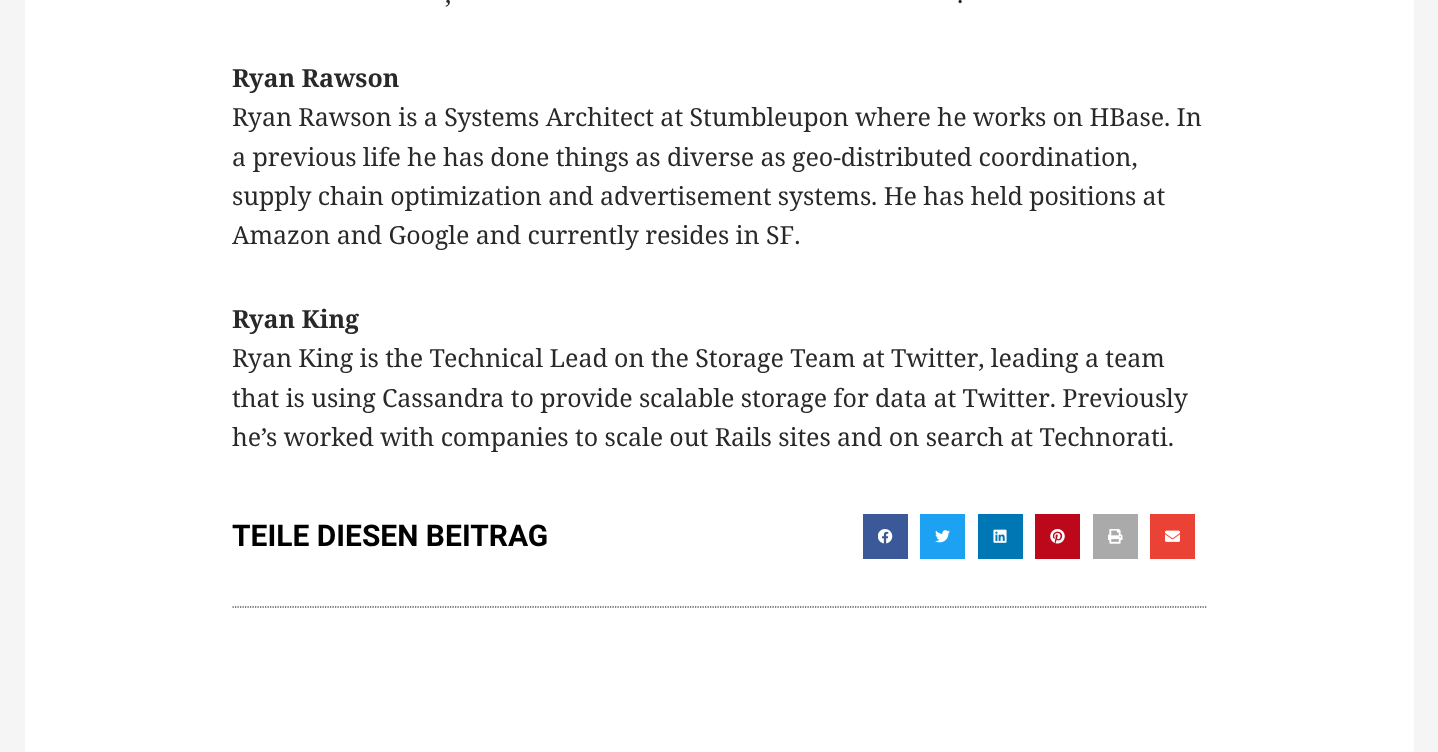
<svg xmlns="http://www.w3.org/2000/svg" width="1438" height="752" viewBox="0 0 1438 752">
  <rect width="100%" height="100%" fill="rgb(245,245,245)"/>
  <rect x="25" y="0" width="1389" height="752" fill="rgb(255,255,255)"/>
  <g font-family="Noto Serif" font-size="25" letter-spacing="-0.07" fill="rgb(41,41,41)">
    <text x="445" y="3">,</text>
    <text x="957" y="3">.</text>
  </g>
  <text x="232" y="87" font-family="Noto Serif" font-size="25" font-weight="bold" letter-spacing="-0.07" fill="rgb(41,41,41)">Ryan Rawson</text>
  <g font-family="Noto Serif" font-size="25" letter-spacing="-0.07" fill="rgb(41,41,41)">
    <text>
      <tspan x="232" y="126">Ryan Rawson is a Systems Architect at Stumbleupon where he works on HBase. In</tspan>
      <tspan x="232" y="166">a previous life he has done things as diverse as geo-distributed coordination,</tspan>
      <tspan x="232" y="205">supply chain optimization and advertisement systems. He has held positions at</tspan>
      <tspan x="232" y="244">Amazon and Google and currently resides in SF.</tspan>
    </text>
  </g>
  <text x="232" y="328" font-family="Noto Serif" font-size="25" font-weight="bold" letter-spacing="-0.07" fill="rgb(41,41,41)">Ryan King</text>
  <g font-family="Noto Serif" font-size="25" letter-spacing="-0.07" fill="rgb(41,41,41)">
    <text>
      <tspan x="232" y="367">Ryan King is the Technical Lead on the Storage Team at Twitter, leading a team</tspan>
      <tspan x="232" y="407">that is using Cassandra to provide scalable storage for data at Twitter. Previously</tspan>
      <tspan x="232" y="446">he’s worked with companies to scale out Rails sites and on search at Technorati.</tspan>
    </text>
  </g>
  <text x="232" y="546" font-family="Roboto" font-size="30" font-weight="bold" fill="rgb(0,0,0)">TEILE DIESEN BEITRAG</text>
  <rect x="863" y="514" width="45" height="45" fill="rgb(59,89,152)"/>
  <image x="878" y="529" width="15" height="15" href="pic1.png"/>
  <rect x="920" y="514" width="45" height="45" fill="rgb(29,161,242)"/>
  <image x="935" y="530" width="15" height="13" href="pic2.png"/>
  <rect x="978" y="514" width="45" height="45" fill="rgb(0,119,181)"/>
  <image x="993" y="529" width="14" height="14" href="pic3.png"/>
  <rect x="1035" y="514" width="45" height="45" fill="rgb(189,8,28)"/>
  <image x="1050" y="529" width="15" height="15" href="pic4.png"/>
  <rect x="1093" y="514" width="45" height="45" fill="rgb(170,170,170)"/>
  <image x="1108" y="529" width="15" height="15" href="pic5.png"/>
  <rect x="1150" y="514" width="45" height="45" fill="rgb(234,67,53)"/>
  <image x="1165" y="530" width="15" height="12" href="pic6.png"/>
  <path d="M232.5 607H1207.5" fill="none" stroke="rgb(0,0,0)" stroke-width="1.2" stroke-dasharray="1.25 1.25"/>
</svg>
